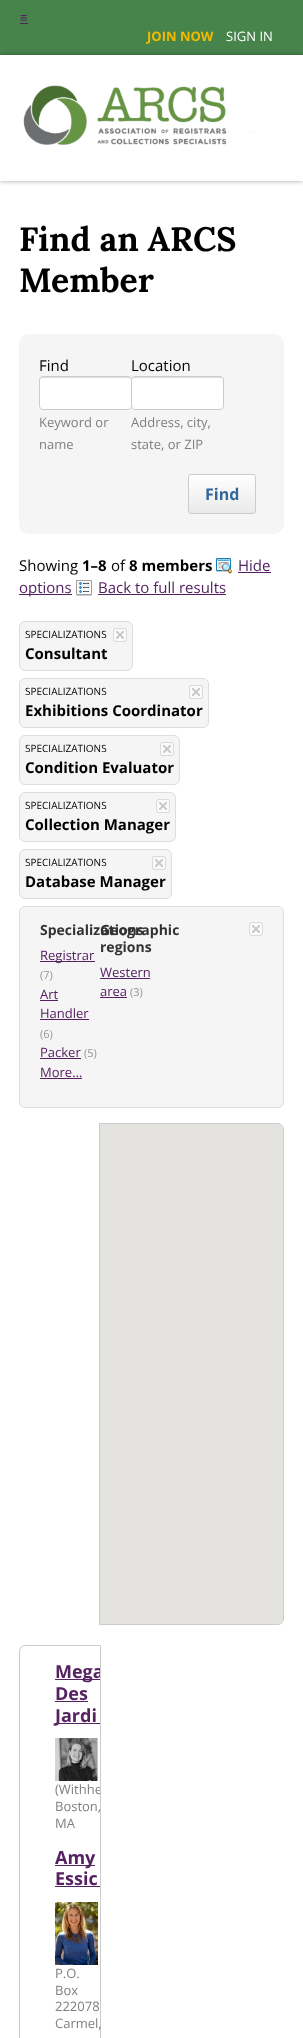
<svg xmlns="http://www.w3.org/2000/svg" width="303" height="2038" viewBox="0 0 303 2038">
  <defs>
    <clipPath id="clip1"><path d="M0 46H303V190H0ZM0 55H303V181H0Z" clip-rule="evenodd"/></clipPath>
    <clipPath id="clip2"><rect x="188" y="474" width="68" height="40" rx="3"/></clipPath>
    <linearGradient id="g1" gradientUnits="userSpaceOnUse" x1="222" y1="475" x2="222" y2="513"><stop offset="0" stop-color="rgb(255,255,255)"/><stop offset="1" stop-color="rgb(234,234,234)"/></linearGradient>
    <clipPath id="clip3"><path d="M25 1646H100V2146H25C22 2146 20 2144 20 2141V1651C20 1648 22 1646 25 1646Z"/></clipPath>
  </defs>
  <rect width="100%" height="100%" fill="rgb(255,255,255)"/>
  <rect x="0" y="0" width="303" height="55" fill="rgb(71,132,75)"/>
  <text x="20" y="22" font-family="Liberation Sans" font-size="13" fill="rgb(85,33,97)">≡</text>
  <rect x="20" y="23" width="8" height="1" fill="rgb(85,33,97)"/>
  <text x="147" y="41" font-family="Open Sans" font-size="13" font-weight="bold" fill="rgb(243,187,0)">JOIN NOW</text>
  <text x="226" y="41" font-family="Open Sans" font-size="13" fill="rgb(255,255,255)">SIGN IN</text>
  <g clip-path="url(#clip1)">
    <rect x="0" y="55" width="303" height="126" fill="rgba(0,0,0,0.35)" filter="blur(2.5px)"/>
  </g>
  <image x="23" y="85" width="204" height="60" href="pic1.png"/>
  <rect x="253" y="132" width="1" height="1" fill="rgb(221,221,221)"/>
  <g font-family="Lora" font-size="33.75" font-weight="bold" fill="rgb(0,0,0)">
    <text>
      <tspan x="19" y="251">Find an ARCS</tspan>
      <tspan x="19" y="292">Member</tspan>
    </text>
  </g>
  <rect x="19" y="334" width="265" height="200" rx="10" fill="rgb(245,245,245)"/>
  <text x="39" y="371" font-family="Open Sans" font-size="15" fill="rgb(0,0,0)">Find</text>
  <rect x="39" y="376" width="93" height="34" rx="4" fill="rgb(255,255,255)"/>
  <path d="M43 378H128C130 378 131 379 131 381C131 373 117 377 114 377H57C54 377 40 373 40 381C40 379 41 378 43 378Z" fill="rgb(221,221,221)"/>
  <rect x="39.5" y="376.5" width="92" height="33" rx="3.5" fill="none" stroke="rgb(204,204,204)"/>
  <g font-family="Open Sans" font-size="13" fill="rgb(127,127,127)">
    <text>
      <tspan x="39" y="427">Keyword or</tspan>
      <tspan x="39" y="449">name</tspan>
    </text>
  </g>
  <text x="131" y="371" font-family="Open Sans" font-size="15" fill="rgb(0,0,0)">Location</text>
  <rect x="131" y="376" width="93" height="34" rx="4" fill="rgb(255,255,255)"/>
  <path d="M135 378H220C222 378 223 379 223 381C223 373 209 377 206 377H149C146 377 132 373 132 381C132 379 133 378 135 378Z" fill="rgb(221,221,221)"/>
  <rect x="131.5" y="376.5" width="92" height="33" rx="3.5" fill="none" stroke="rgb(204,204,204)"/>
  <g font-family="Open Sans" font-size="13" fill="rgb(127,127,127)">
    <text>
      <tspan x="131" y="427">Address, city,</tspan>
      <tspan x="131" y="449">state, or ZIP</tspan>
    </text>
  </g>
  <g clip-path="url(#clip2)">
    <rect x="188" y="475" width="68" height="38" fill="url(#g1)"/>
  </g>
  <rect x="188.5" y="474.5" width="67" height="39" rx="2.5" fill="none" stroke="rgb(204,204,204)"/>
  <text x="205" y="500" font-family="Open Sans" font-size="16" font-weight="bold" fill="rgb(51,102,153)">Find</text>
  <text x="19" y="571" font-family="Open Sans" font-size="15" fill="rgb(0,0,0)">Showing</text>
  <text x="82" y="571" font-family="Open Sans" font-size="15" font-weight="bold" fill="rgb(0,0,0)">1–8</text>
  <text x="111" y="571" font-family="Open Sans" font-size="15" fill="rgb(0,0,0)">of</text>
  <text x="129" y="571" font-family="Open Sans" font-size="15" font-weight="bold" fill="rgb(0,0,0)">8 members</text>
  <image x="216" y="558" width="16" height="16" href="pic2.png"/>
  <text x="238" y="571" font-family="Open Sans" font-size="15" fill="rgb(85,33,97)">Hide</text>
  <rect x="238" y="572" width="33" height="1" fill="rgb(85,33,97)"/>
  <rect x="19" y="594" width="53" height="1" fill="rgb(85,33,97)"/>
  <text x="19" y="593" font-family="Open Sans" font-size="15" fill="rgb(85,33,97)">options</text>
  <image x="76" y="580" width="16" height="16" href="pic3.png"/>
  <text x="98" y="593" font-family="Open Sans" font-size="15" fill="rgb(85,33,97)">Back to full results</text>
  <rect x="98" y="594" width="128" height="1" fill="rgb(85,33,97)"/>
  <rect x="19.5" y="621.5" width="113" height="49" rx="5.5" fill="rgb(245,245,245)" stroke="rgb(221,221,221)"/>
  <text x="25" y="638" font-family="Open Sans" font-size="10" fill="rgb(0,0,0)">SPECIALIZATIONS</text>
  <image x="113" y="628" width="14" height="14" href="pic4.png"/>
  <text x="25" y="659" font-family="Open Sans" font-size="15" font-weight="bold" fill="rgb(0,0,0)">Consultant</text>
  <rect x="19.5" y="678.5" width="189" height="49" rx="5.5" fill="rgb(245,245,245)" stroke="rgb(221,221,221)"/>
  <text x="25" y="695" font-family="Open Sans" font-size="10" fill="rgb(0,0,0)">SPECIALIZATIONS</text>
  <image x="189" y="685" width="14" height="14" href="pic4.png"/>
  <text x="25" y="716" font-family="Open Sans" font-size="15" font-weight="bold" fill="rgb(0,0,0)">Exhibitions Coordinator</text>
  <rect x="19.5" y="735.5" width="160" height="49" rx="5.5" fill="rgb(245,245,245)" stroke="rgb(221,221,221)"/>
  <text x="25" y="752" font-family="Open Sans" font-size="10" fill="rgb(0,0,0)">SPECIALIZATIONS</text>
  <image x="160" y="742" width="14" height="14" href="pic4.png"/>
  <text x="25" y="773" font-family="Open Sans" font-size="15" font-weight="bold" fill="rgb(0,0,0)">Condition Evaluator</text>
  <rect x="19.5" y="792.5" width="156" height="49" rx="5.5" fill="rgb(245,245,245)" stroke="rgb(221,221,221)"/>
  <text x="25" y="809" font-family="Open Sans" font-size="10" fill="rgb(0,0,0)">SPECIALIZATIONS</text>
  <image x="156" y="799" width="14" height="14" href="pic4.png"/>
  <text x="25" y="830" font-family="Open Sans" font-size="15" font-weight="bold" fill="rgb(0,0,0)">Collection Manager</text>
  <rect x="19.5" y="849.5" width="152" height="49" rx="5.5" fill="rgb(245,245,245)" stroke="rgb(221,221,221)"/>
  <text x="25" y="866" font-family="Open Sans" font-size="10" fill="rgb(0,0,0)">SPECIALIZATIONS</text>
  <image x="152" y="856" width="14" height="14" href="pic4.png"/>
  <text x="25" y="887" font-family="Open Sans" font-size="15" font-weight="bold" fill="rgb(0,0,0)">Database Manager</text>
  <rect x="19.5" y="906.5" width="264" height="201" rx="5.5" fill="rgb(245,245,245)" stroke="rgb(221,221,221)"/>
  <text x="40" y="935" font-family="Open Sans" font-size="14" font-weight="bold" fill="rgb(51,51,51)">Specializations</text>
  <rect x="40" y="961" width="55" height="1" fill="rgb(85,33,97)"/>
  <text x="40" y="960" font-family="Open Sans" font-size="13" fill="rgb(85,33,97)">Registrar</text>
  <text x="40" y="979" font-family="Open Sans" font-size="11" fill="rgb(147,149,152)">(7)</text>
  <text x="40" y="999" font-family="Open Sans" font-size="13" fill="rgb(85,33,97)">Art</text>
  <rect x="40" y="1000" width="18" height="1" fill="rgb(85,33,97)"/>
  <text x="40" y="1018" font-family="Open Sans" font-size="13" fill="rgb(85,33,97)">Handler</text>
  <rect x="40" y="1019" width="49" height="1" fill="rgb(85,33,97)"/>
  <text x="40" y="1038" font-family="Open Sans" font-size="11" fill="rgb(147,149,152)">(6)</text>
  <text x="40" y="1057" font-family="Open Sans" font-size="13" fill="rgb(85,33,97)">Packer</text>
  <rect x="40" y="1058" width="41" height="1" fill="rgb(85,33,97)"/>
  <text x="84" y="1057" font-family="Open Sans" font-size="11" fill="rgb(147,149,152)">(5)</text>
  <text x="40" y="1077" font-family="Open Sans" font-size="13" fill="rgb(85,33,97)">More…</text>
  <rect x="40" y="1078" width="42" height="1" fill="rgb(85,33,97)"/>
  <g font-family="Open Sans" font-size="14" font-weight="bold" fill="rgb(51,51,51)">
    <text>
      <tspan x="100" y="935">Geographic</tspan>
      <tspan x="100" y="952">regions</tspan>
    </text>
  </g>
  <text x="100" y="977" font-family="Open Sans" font-size="13" fill="rgb(85,33,97)">Western</text>
  <rect x="100" y="978" width="50" height="1" fill="rgb(85,33,97)"/>
  <text x="100" y="996" font-family="Open Sans" font-size="13" fill="rgb(85,33,97)">area</text>
  <rect x="100" y="997" width="27" height="1" fill="rgb(85,33,97)"/>
  <text x="130" y="996" font-family="Open Sans" font-size="11" fill="rgb(147,149,152)">(3)</text>
  <image x="249" y="922" width="14" height="14" href="pic4.png"/>
  <path d="M99.5 1123.5H278C281 1123.5 283.5 1126 283.5 1129V1619C283.5 1622 281 1624.5 278 1624.5H99.5Z" fill="none" stroke="rgb(204,204,204)"/>
  <path d="M100 1124H278C281 1124 283 1126 283 1129V1619C283 1622 281 1624 278 1624H100Z" fill="rgb(229,227,223)"/>
  <path d="M25 1645.5H100.5V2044.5H25C22 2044.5 19.5 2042 19.5 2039V1651C19.5 1648 22 1645.5 25 1645.5Z" fill="none" stroke="rgb(204,204,204)"/>
  <rect x="55" y="1679" width="45" height="1" fill="rgb(85,33,97)"/>
  <g clip-path="url(#clip3)">
    <text x="55" y="1678" font-family="Open Sans" font-size="18" font-weight="bold" fill="rgb(85,33,97)">Mega</text>
  </g>
  <text x="55" y="1700" font-family="Open Sans" font-size="18" font-weight="bold" fill="rgb(85,33,97)">Des</text>
  <rect x="55" y="1701" width="33" height="1" fill="rgb(85,33,97)"/>
  <rect x="55" y="1723" width="45" height="1" fill="rgb(85,33,97)"/>
  <text x="55" y="1722" font-family="Open Sans" font-size="18" font-weight="bold" fill="rgb(85,33,97)">Jardi</text>
  <image x="55" y="1738" width="43" height="43" href="pic5.png"/>
  <g clip-path="url(#clip3)">
    <text x="55" y="1794" font-family="Open Sans" font-size="13" fill="rgb(127,127,127)">(Withhe</text>
  </g>
  <g font-family="Open Sans" font-size="13" fill="rgb(127,127,127)">
    <text>
      <tspan x="55" y="1811">Boston,</tspan>
      <tspan x="55" y="1828">MA</tspan>
    </text>
  </g>
  <rect x="55" y="1865" width="40" height="1" fill="rgb(85,33,97)"/>
  <g font-family="Open Sans" font-size="18" font-weight="bold" fill="rgb(85,33,97)">
    <text>
      <tspan x="55" y="1864">Amy</tspan>
      <tspan x="55" y="1885">Essic</tspan>
    </text>
  </g>
  <rect x="55" y="1886" width="45" height="1" fill="rgb(85,33,97)"/>
  <image x="55" y="1902" width="43" height="63" href="pic6.png"/>
  <g font-family="Open Sans" font-size="13" fill="rgb(127,127,127)">
    <text>
      <tspan x="55" y="1978">P.O.</tspan>
      <tspan x="55" y="1995">Box</tspan>
      <tspan x="55" y="2011">222078</tspan>
      <tspan x="55" y="2028">Carmel,</tspan>
    </text>
  </g>
</svg>
